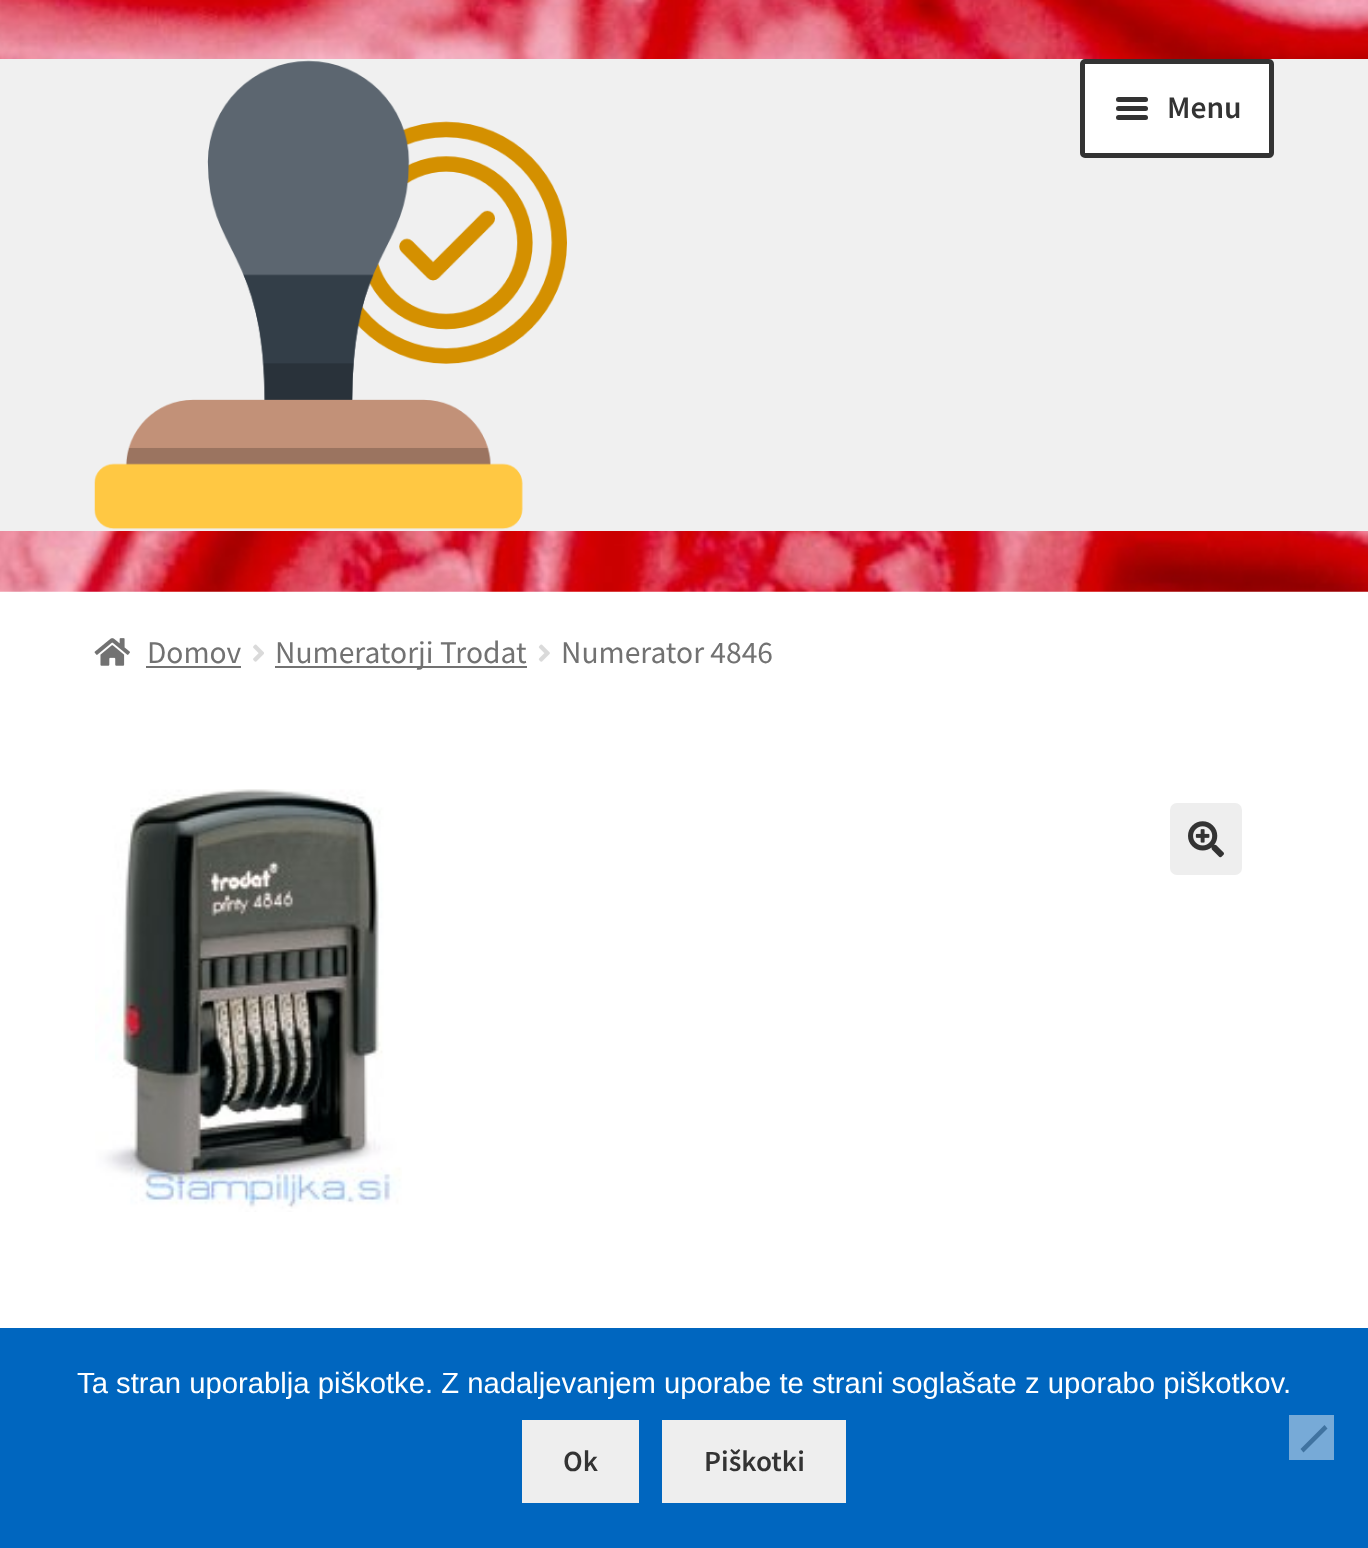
<svg xmlns="http://www.w3.org/2000/svg" width="1368" height="1548" viewBox="0 0 1368 1548">
  <rect width="100%" height="100%" fill="rgb(255,255,255)"/>
  <image x="0" y="0" width="1368" height="592" href="pic1.png"/>
  <rect x="0" y="59" width="1368" height="472" fill="rgb(240,240,240)"/>
  <image x="94" y="60" width="473" height="470" href="pic2.png"/>
  <rect x="1082.5" y="61.5" width="189" height="94" rx="2.5" fill="rgb(255,255,255)" stroke="rgb(51,51,51)" stroke-width="5"/>
  <rect x="1116" y="97" width="32" height="5" rx="2.5" fill="rgb(51,51,51)"/>
  <rect x="1116" y="106" width="32" height="5" rx="2.5" fill="rgb(51,51,51)"/>
  <text x="1167" y="118" font-family="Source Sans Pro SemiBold" font-size="31.5" font-weight="600" fill="rgb(51,51,51)">Menu</text>
  <rect x="1116" y="115" width="32" height="5" rx="2.5" fill="rgb(51,51,51)"/>
  <image x="94" y="638" width="36" height="28" href="pic3.png"/>
  <text x="147" y="663" font-family="Source Sans Pro" font-size="31.5" fill="rgb(114,114,114)">Domov</text>
  <rect x="146" y="666" width="95" height="2" fill="rgb(114,114,114)"/>
  <image x="253" y="644" width="11" height="18" href="pic4.png"/>
  <rect x="275" y="666" width="252" height="2" fill="rgb(114,114,114)"/>
  <text x="275" y="663" font-family="Source Sans Pro" font-size="31.5" fill="rgb(114,114,114)">Numeratorji Trodat</text>
  <image x="538" y="644" width="12" height="18" href="pic5.png"/>
  <text x="561" y="663" font-family="Source Sans Pro" font-size="31.5" fill="rgb(114,114,114)">Numerator 4846</text>
  <image x="95" y="789" width="307" height="423" href="pic6.png"/>
  <rect x="1170" y="803" width="72" height="72" rx="7" fill="rgb(238,238,238)"/>
  <image x="1188" y="821" width="36" height="37" href="pic7.png"/>
  <rect x="0" y="1328" width="1368" height="220" fill="rgb(0,102,191)"/>
  <text x="77" y="1393" font-family="Liberation Sans" font-size="29.25" fill="rgb(255,255,255)">Ta stran uporablja piškotke. Z nadaljevanjem uporabe te strani soglašate z uporabo piškotkov.</text>
  <rect x="522" y="1420" width="117" height="83" fill="rgb(238,238,238)"/>
  <text x="563" y="1471" font-family="Source Sans Pro SemiBold" font-size="29.25" font-weight="600" fill="rgb(51,51,51)">Ok</text>
  <rect x="662" y="1420" width="184" height="83" fill="rgb(238,238,238)"/>
  <text x="704" y="1471" font-family="Source Sans Pro SemiBold" font-size="29.25" font-weight="600" fill="rgb(51,51,51)">Piškotki</text>
  <rect x="1289" y="1415" width="45" height="45" fill="rgb(119,170,215)"/>
  <path d="M1324.5 1425L1327.5 1428.5L1303.5 1452.5L1300.5 1449Z" fill="rgb(64,115,160)"/>
</svg>
